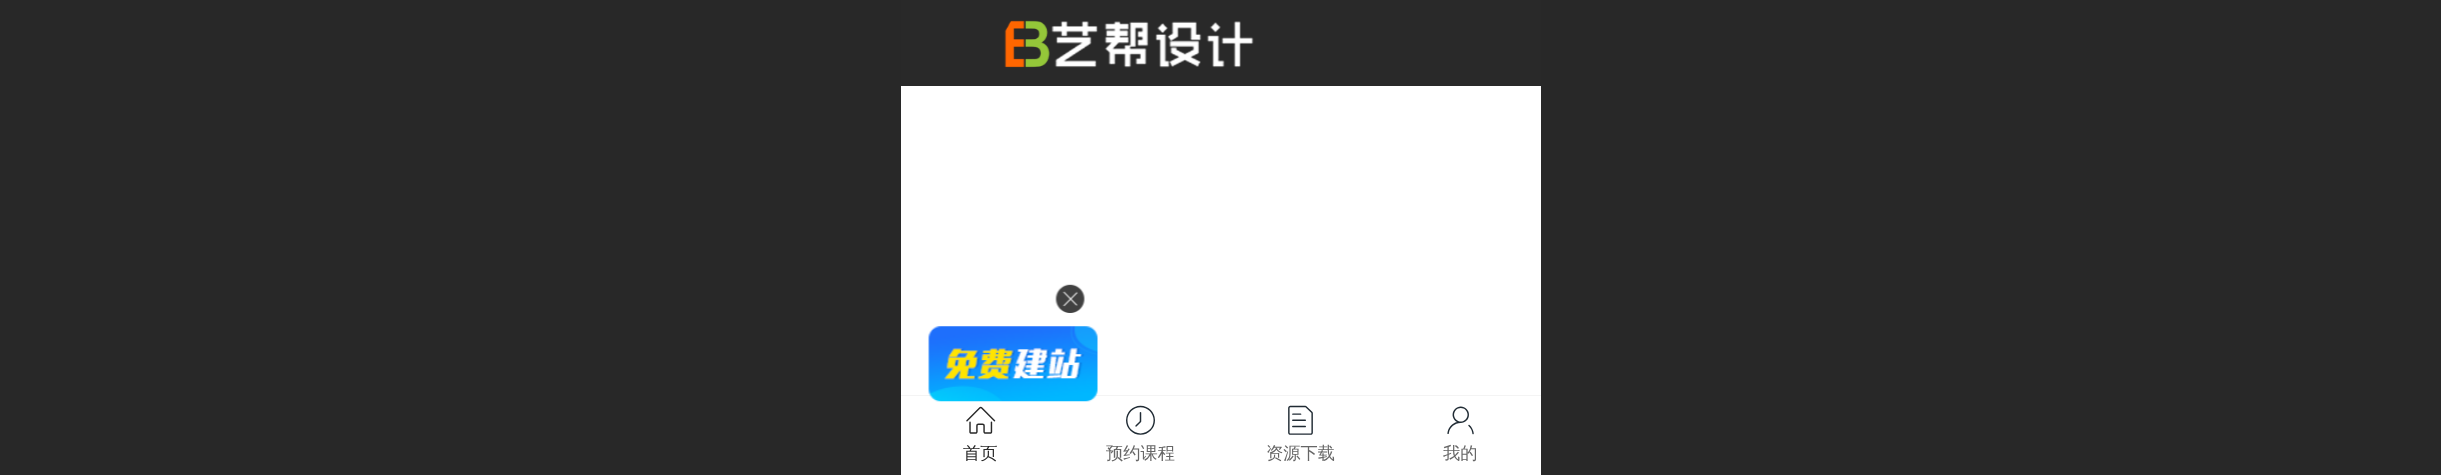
<svg xmlns="http://www.w3.org/2000/svg" width="2441" height="475" viewBox="0 0 2441 475">
  <style>*{font-kerning:none!important;font-variant-ligatures:none!important}</style>
  <rect width="100%" height="100%" fill="rgb(255,255,255)"/>
  <rect x="0" y="0" width="901" height="475" fill="rgb(40,40,40)"/>
  <rect x="901" y="0" width="640" height="86" fill="rgb(41,41,41)"/>
  <image x="1004" y="20" width="250" height="48" href="pic1.png"/>
  <image x="1055" y="284" width="30" height="29" href="pic2.png"/>
  <rect x="901" y="395" width="640" height="1" fill="rgb(244,244,244)"/>
  <image x="928" y="326" width="170" height="76" href="pic3.png"/>
  <text x="966" y="433" font-family="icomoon" font-size="29" fill="rgb(41,41,41)">򠡀</text>
  <text x="963" y="459" font-family="WenQuanYi Zen Hei" font-size="17.25" font-weight="500" fill="rgb(41,41,41)">首页</text>
  <text x="1126" y="433" font-family="icomoon" font-size="29" fill="rgb(32,43,52)">򠄄</text>
  <text x="1106" y="459" font-family="WenQuanYi Zen Hei" font-size="17.25" font-weight="500" fill="rgb(102,102,102)">预约课程</text>
  <text x="1286" y="433" font-family="icomoon" font-size="29" fill="rgb(32,43,52)">򠕲</text>
  <text x="1266" y="459" font-family="WenQuanYi Zen Hei" font-size="17.25" font-weight="500" fill="rgb(102,102,102)">资源下载</text>
  <text x="1446" y="433" font-family="icomoon" font-size="29" fill="rgb(32,43,52)">򠌹</text>
  <text x="1443" y="459" font-family="WenQuanYi Zen Hei" font-size="17.25" font-weight="500" fill="rgb(102,102,102)">我的</text>
  <rect x="1541" y="0" width="900" height="475" fill="rgb(40,40,40)"/>
</svg>
